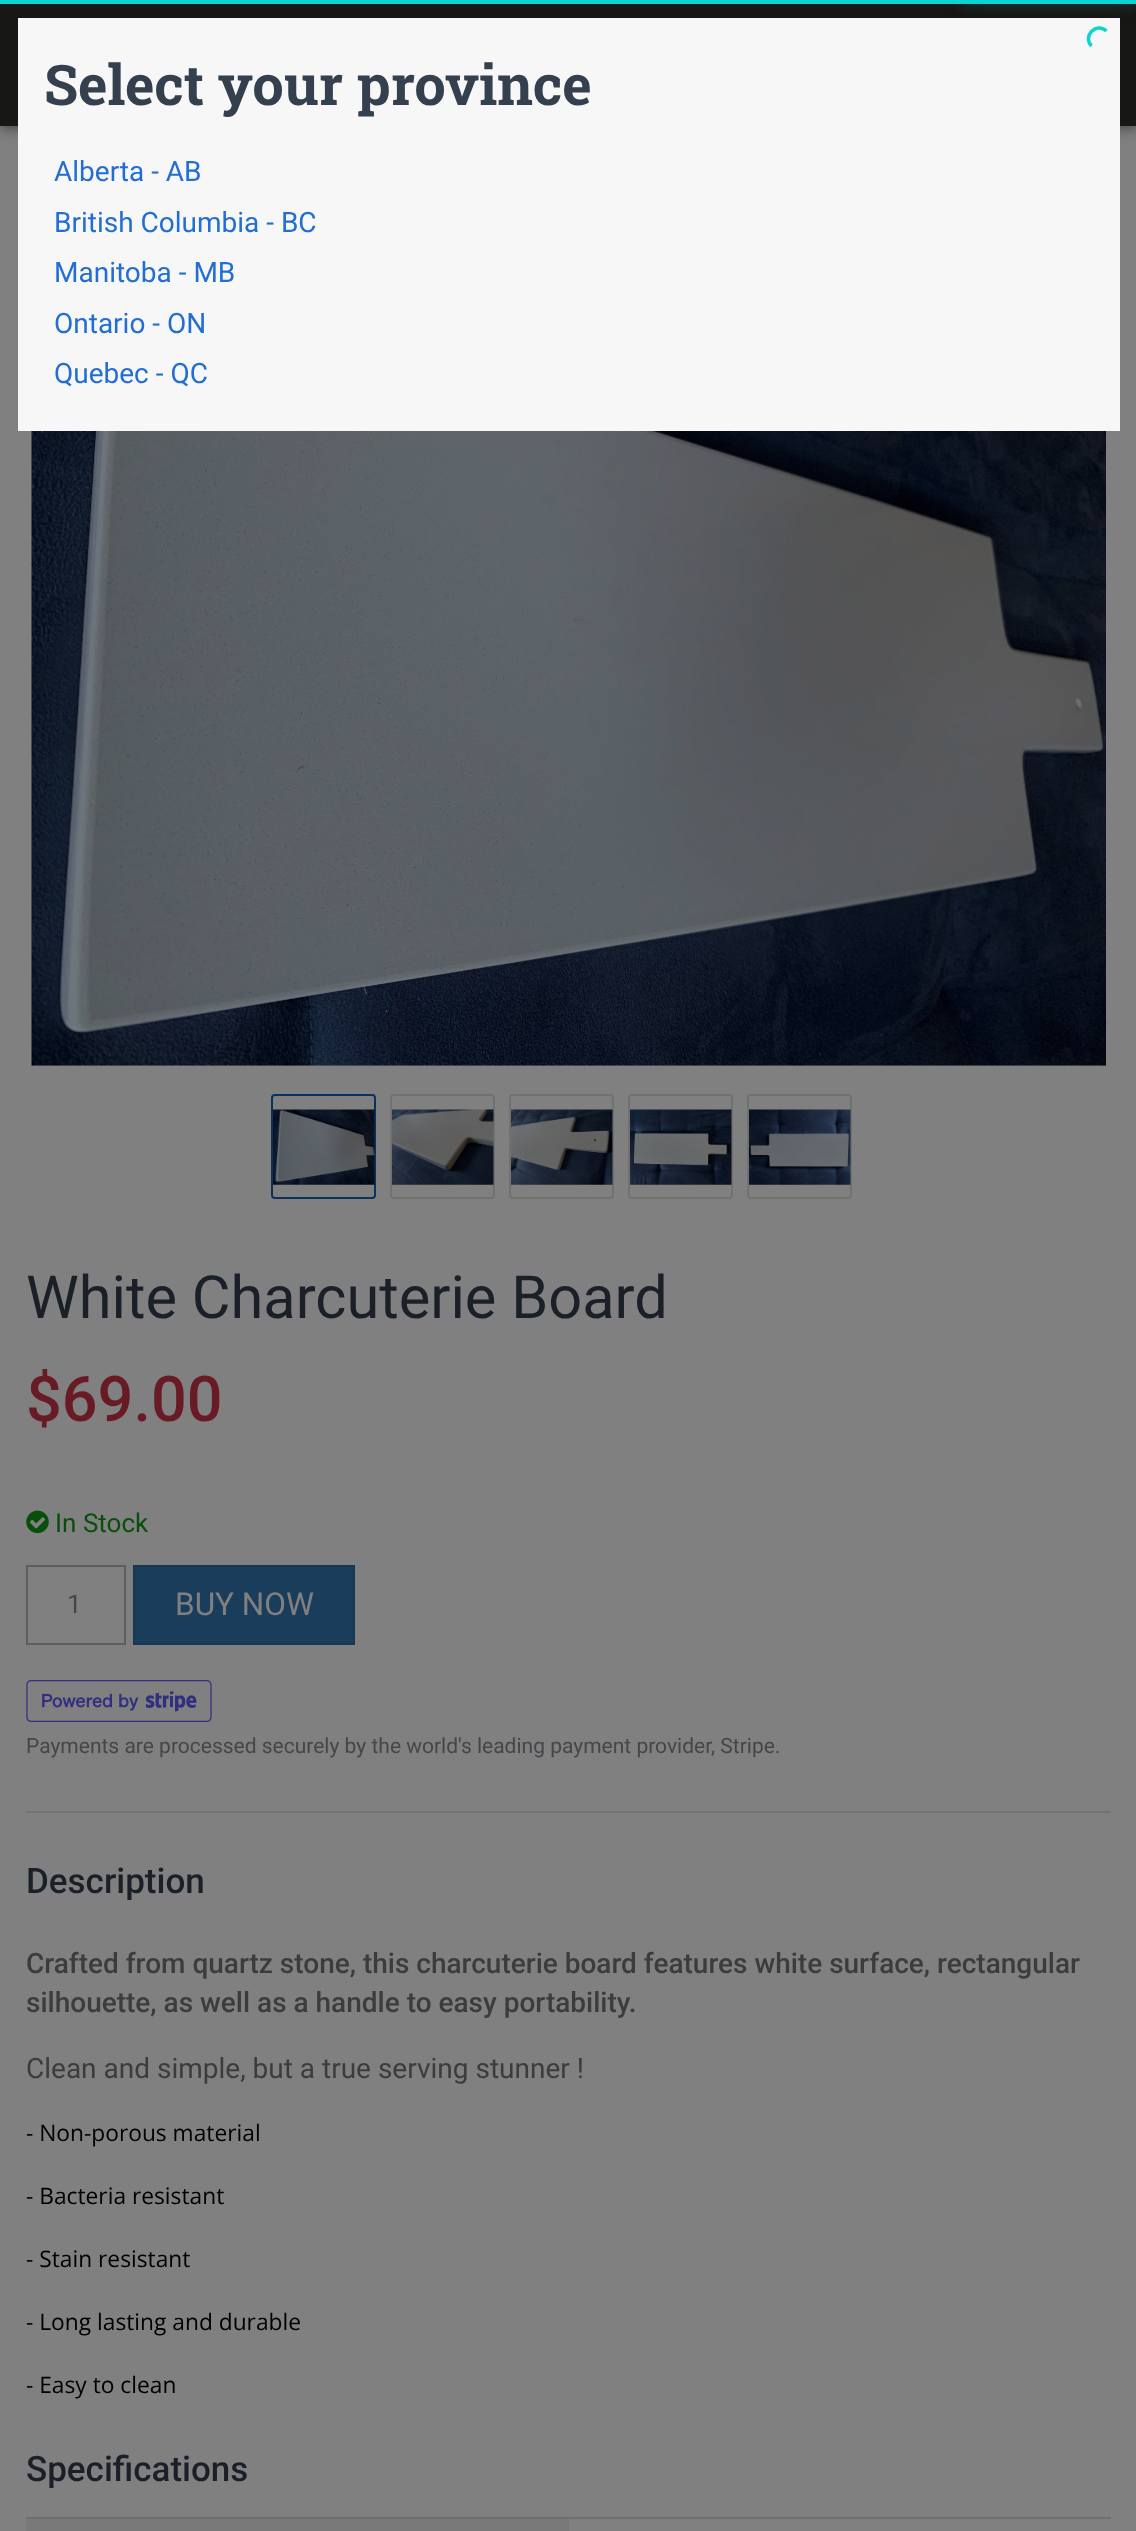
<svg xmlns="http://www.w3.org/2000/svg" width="1136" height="2531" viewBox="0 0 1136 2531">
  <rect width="100%" height="100%" fill="rgb(128,128,128)"/>
  <rect x="0" y="2" width="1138" height="126" fill="rgba(0,0,0,0.5)" filter="blur(7px)"/>
  <rect x="0" y="4" width="1136" height="122" fill="rgb(23,23,21)"/>
  <rect x="0" y="0" width="1136" height="4" fill="rgb(12,212,210)"/>
  <rect x="18" y="18" width="1102" height="413" fill="rgb(247,247,247)"/>
  <rect x="963" y="-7" width="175" height="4" fill="rgb(12,212,210)" filter="blur(9px)"/>
  <path d="M1091.5 46C1082 36 1096.5 21.5 1106.5 31" fill="none" stroke="rgb(12,212,210)" stroke-width="3.5"/>
  <text x="44" y="105" font-family="Roboto Slab" font-size="56" font-weight="bold" fill="rgb(53,64,79)">Select your province</text>
  <g font-family="Roboto" font-size="28" fill="rgb(34,110,210)">
    <text>
      <tspan x="54" y="181">Alberta - AB</tspan>
      <tspan x="54" y="232">British Columbia - BC</tspan>
      <tspan x="54" y="282">Manitoba - MB</tspan>
      <tspan x="54" y="333">Ontario - ON</tspan>
      <tspan x="54" y="383">Quebec - QC</tspan>
    </text>
  </g>
  <image x="31" y="431" width="1075" height="635" href="pic1.png"/>
  <rect x="272" y="1095" width="103" height="103" rx="3" fill="none" stroke="rgb(11,50,91)" stroke-width="2"/>
  <image x="273" y="1109" width="102" height="76" href="pic2.png"/>
  <rect x="391" y="1095" width="103" height="103" rx="3" fill="none" stroke="rgb(113,113,113)" stroke-width="2"/>
  <image x="392" y="1109" width="102" height="76" href="pic3.png"/>
  <rect x="510" y="1095" width="103" height="103" rx="3" fill="none" stroke="rgb(113,113,113)" stroke-width="2"/>
  <image x="511" y="1109" width="102" height="76" href="pic4.png"/>
  <rect x="629" y="1095" width="103" height="103" rx="3" fill="none" stroke="rgb(113,113,113)" stroke-width="2"/>
  <image x="630" y="1109" width="102" height="76" href="pic5.png"/>
  <rect x="748" y="1095" width="103" height="103" rx="3" fill="none" stroke="rgb(113,113,113)" stroke-width="2"/>
  <image x="749" y="1109" width="102" height="76" href="pic6.png"/>
  <text x="26" y="1318" font-family="Roboto" font-size="59.5" fill="rgb(27,32,40)">White Charcuterie Board</text>
  <text x="26" y="1421" font-family="Roboto" font-size="63" font-weight="500" fill="rgb(104,27,37)">$69.00</text>
  <image x="26" y="1510" width="23" height="24" href="pic7.png"/>
  <text x="55" y="1532" font-family="Roboto" font-size="26" fill="rgb(9,79,11)">In Stock</text>
  <rect x="27" y="1566" width="98" height="78" fill="none" stroke="rgb(94,94,94)" stroke-width="2"/>
  <text x="67" y="1613" font-family="Roboto" font-size="26" fill="rgb(68,70,74)">1</text>
  <rect x="134" y="1566" width="220" height="78" fill="rgb(26,61,92)" stroke="rgb(23,55,82)" stroke-width="2"/>
  <text x="175" y="1615" font-family="Roboto" font-size="31.5" fill="rgb(128,128,128)">BUY NOW</text>
  <image x="26" y="1680" width="186" height="42" href="pic8.png"/>
  <text x="26" y="1753" font-family="Roboto" font-size="21" fill="rgb(68,70,74)">Payments are processed securely by the world's leading payment provider, Stripe.</text>
  <rect x="26" y="1811" width="1085" height="2" fill="rgb(115,115,115)"/>
  <text x="26" y="1893" font-family="Roboto" font-size="35" font-weight="500" fill="rgb(27,32,40)">Description</text>
  <g font-family="Roboto" font-size="28" font-weight="500" fill="rgb(60,60,60)">
    <text>
      <tspan x="26" y="1973">Crafted from quartz stone, this charcuterie board features white surface, rectangular</tspan>
      <tspan x="26" y="2012">silhouette, as well as a handle to easy portability.</tspan>
    </text>
  </g>
  <text x="26" y="2078" font-family="Roboto" font-size="28" fill="rgb(60,60,60)">Clean and simple, but a true serving stunner !</text>
  <g font-family="Open Sans" font-size="22.75" fill="rgb(0,0,0)">
    <text x="26" y="2141">- Non-porous material</text>
    <text x="26" y="2204">- Bacteria resistant</text>
    <text x="26" y="2267">- Stain resistant</text>
    <text x="26" y="2330">- Long lasting and durable</text>
    <text x="26" y="2393">- Easy to clean</text>
  </g>
  <text x="26" y="2481" font-family="Roboto" font-size="35" font-weight="500" fill="rgb(27,32,40)">Specifications</text>
  <rect x="26" y="2519" width="543" height="12" fill="rgb(121,121,122)"/>
  <rect x="26" y="2517" width="1085" height="2" fill="rgb(111,111,111)"/>
</svg>
